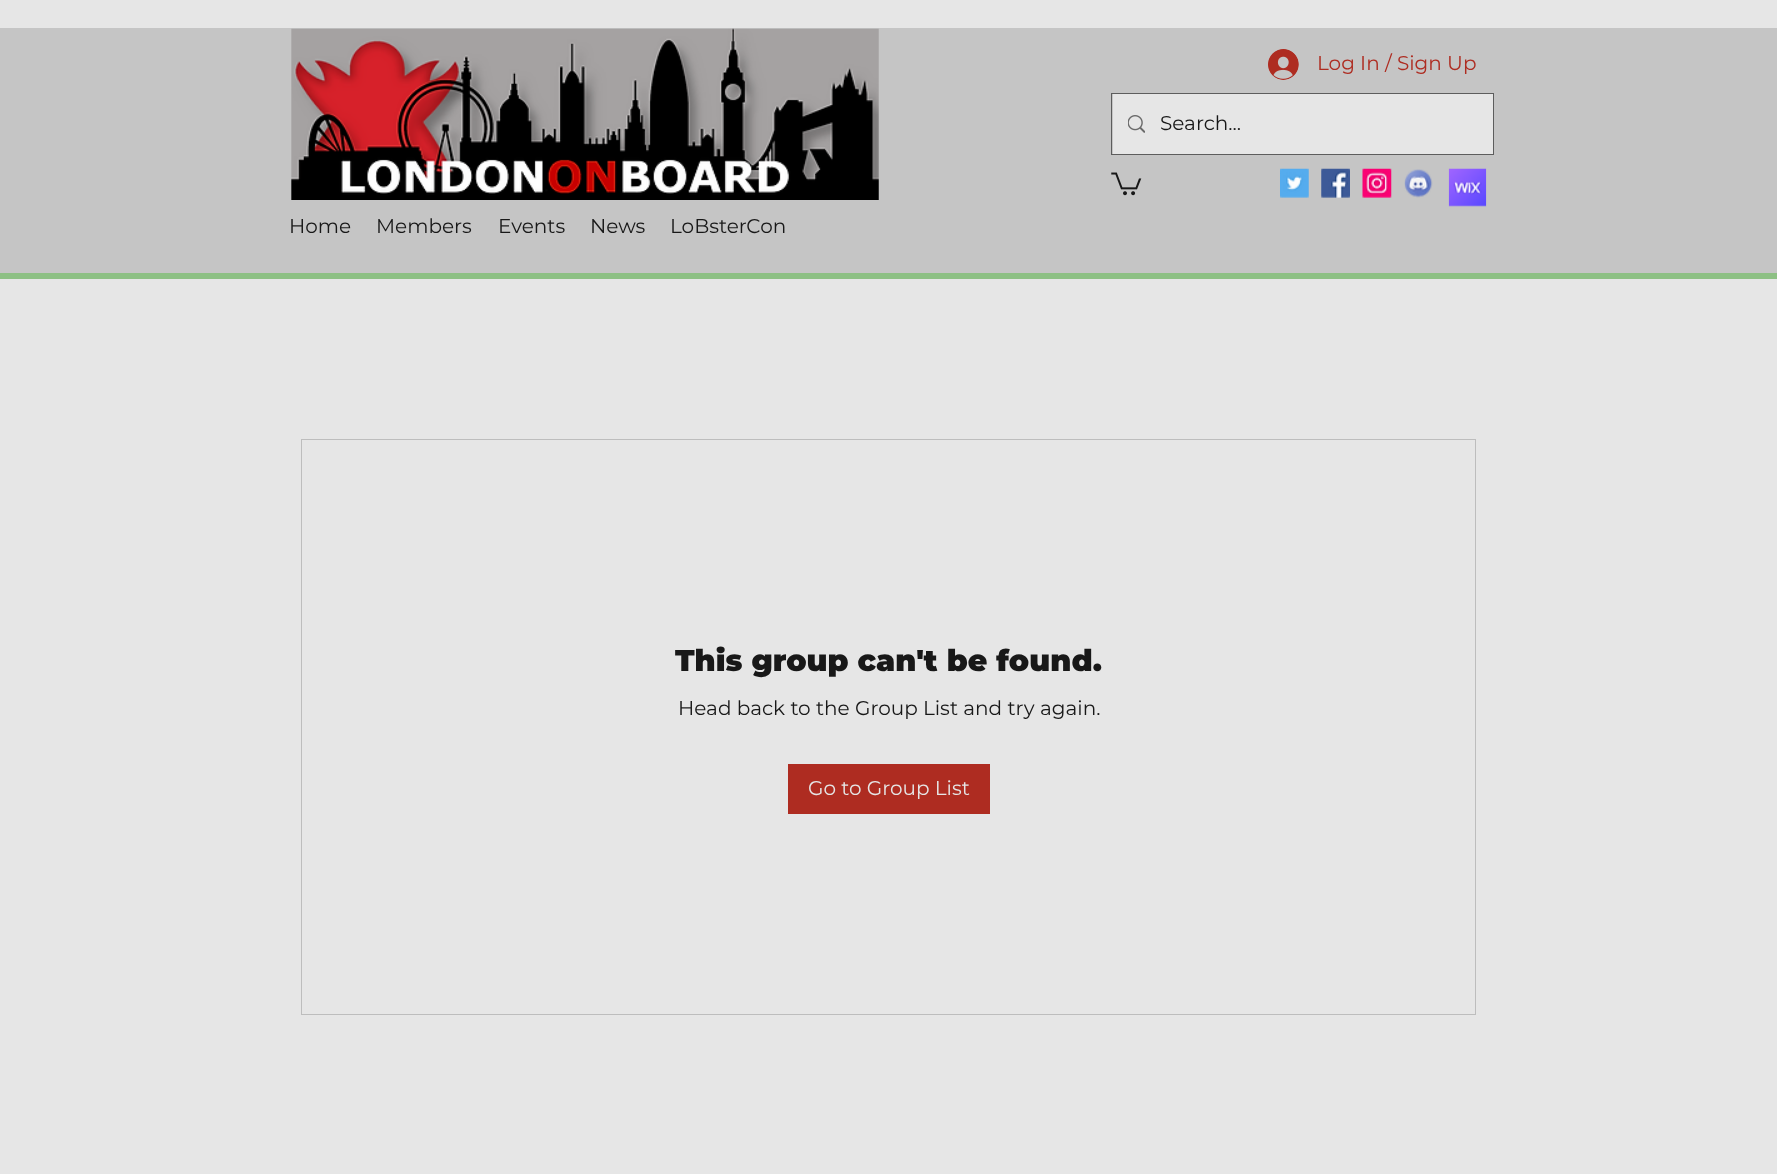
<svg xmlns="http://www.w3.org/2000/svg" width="1777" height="1174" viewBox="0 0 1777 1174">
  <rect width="100%" height="100%" fill="rgb(230,230,230)"/>
  <rect x="0" y="273" width="1777" height="6" fill="rgb(141,192,132)"/>
  <rect x="0" y="28" width="1777" height="245" fill="rgb(197,197,197)"/>
  <image x="291" y="28" width="588" height="172" href="pic1.png"/>
  <image x="1268" y="49" width="31" height="31" href="pic2.png"/>
  <text x="1317" y="70" font-family="Montserrat" font-size="20" fill="rgb(174,44,33)">Log In / Sign Up</text>
  <rect x="1111.5" y="93.5" width="382" height="61" fill="none" stroke="rgb(93,93,93)"/>
  <rect x="1113" y="94" width="380" height="60" fill="rgb(230,230,230)"/>
  <image x="1128" y="115" width="17" height="18" href="pic3.png"/>
  <text x="1160" y="130" font-family="Montserrat" font-size="20" fill="rgb(24,24,24)">Search...</text>
  <image x="1111" y="172" width="31" height="24" href="pic4.png"/>
  <image x="1280" y="168" width="29" height="30" href="pic5.png"/>
  <image x="1321" y="168" width="29" height="30" href="pic6.png"/>
  <image x="1362" y="168" width="30" height="30" href="pic7.png"/>
  <image x="1404" y="169" width="29" height="29" href="pic8.png"/>
  <image x="1448" y="168" width="39" height="39" href="pic9.png"/>
  <g font-family="Montserrat" font-size="20" fill="rgb(24,24,24)">
    <text x="289" y="233">Home</text>
    <text x="376" y="233">Members</text>
    <text x="498" y="233">Events</text>
    <text x="590" y="233">News</text>
    <text x="670" y="233">LoBsterCon</text>
  </g>
  <rect x="301.5" y="439.5" width="1174" height="575" fill="none" stroke="rgb(189,189,189)"/>
  <text x="675" y="671" font-family="Montserrat" font-size="30" font-weight="100" fill="rgb(24,24,24)">This group can't be found.</text>
  <text x="678" y="715" font-family="Montserrat" font-size="20" fill="rgb(24,24,24)">Head back to the Group List and try again.</text>
  <rect x="788" y="764" width="202" height="50" fill="rgb(174,44,33)"/>
  <text x="808" y="795" font-family="Montserrat" font-size="20" fill="rgb(230,230,230)">Go to Group List</text>
</svg>
